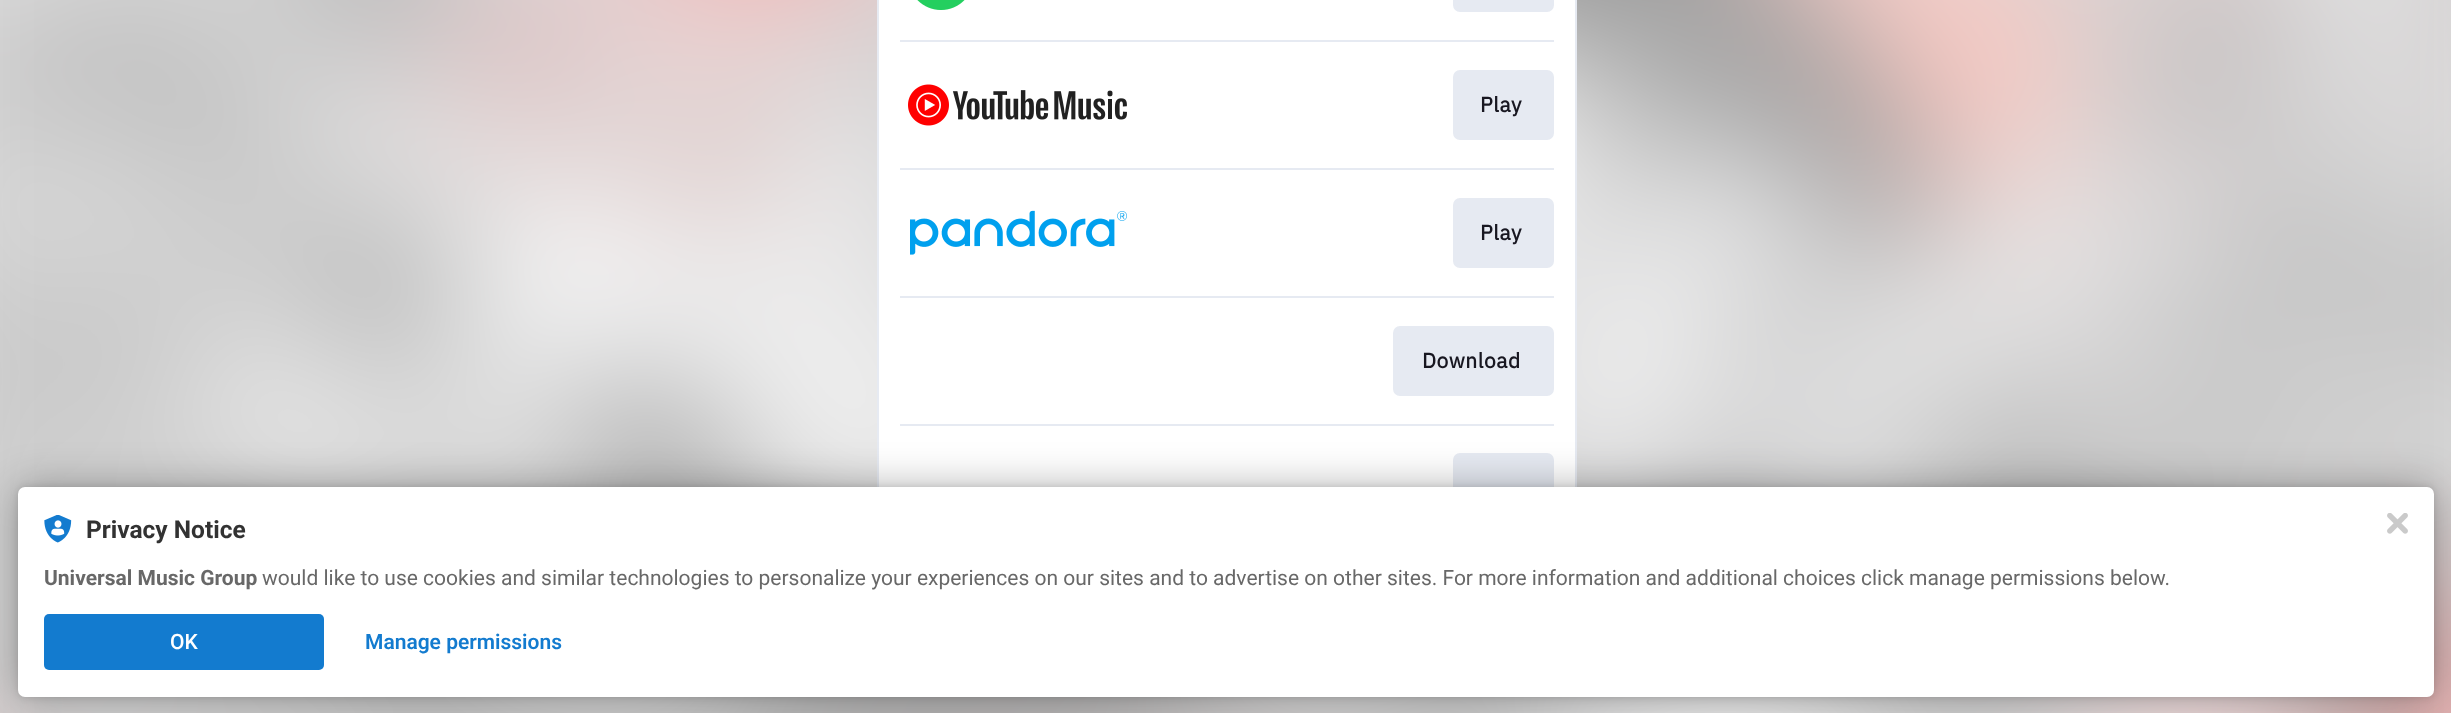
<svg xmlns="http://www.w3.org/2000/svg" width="2451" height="713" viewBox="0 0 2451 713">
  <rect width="100%" height="100%" fill="rgb(255,255,255)"/>
  <image x="0" y="0" width="2451" height="713" href="pic1.png"/>
  <rect x="878" y="-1" width="698" height="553" fill="none" stroke="rgb(230,234,242)" stroke-width="2"/>
  <rect x="879" y="0" width="696" height="487" fill="rgb(255,255,255)"/>
  <image x="917" y="0" width="48" height="10" href="pic2.png"/>
  <rect x="1453" y="-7" width="101" height="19" rx="7" fill="rgb(230,234,242)"/>
  <rect x="900" y="40" width="654" height="2" fill="rgb(230,234,242)"/>
  <image x="908" y="84" width="219" height="42" href="pic3.png"/>
  <rect x="1453" y="70" width="101" height="70" rx="7" fill="rgb(230,234,242)"/>
  <text x="1480" y="112" font-family="IBM Plex Sans" font-size="21" font-weight="bold" letter-spacing="0.5" fill="rgb(24,23,33)">Play</text>
  <rect x="900" y="168" width="654" height="2" fill="rgb(230,234,242)"/>
  <image x="910" y="210" width="217" height="45" href="pic4.png"/>
  <rect x="1453" y="198" width="101" height="70" rx="7" fill="rgb(230,234,242)"/>
  <text x="1480" y="240" font-family="IBM Plex Sans" font-size="21" font-weight="bold" letter-spacing="0.5" fill="rgb(24,23,33)">Play</text>
  <rect x="900" y="296" width="654" height="2" fill="rgb(230,234,242)"/>
  <rect x="1393" y="326" width="161" height="70" rx="7" fill="rgb(230,234,242)"/>
  <text x="1422" y="368" font-family="IBM Plex Sans" font-size="21" font-weight="bold" letter-spacing="0.5" fill="rgb(24,23,33)">Download</text>
  <rect x="900" y="424" width="654" height="2" fill="rgb(230,234,242)"/>
  <rect x="1453" y="453" width="101" height="70" rx="7" fill="rgb(230,234,242)"/>
  <rect x="18" y="487" width="2416" height="210" rx="7" fill="rgba(0,0,0,0.12)" filter="blur(3.5px)"/>
  <rect x="18" y="487" width="2416" height="210" rx="7" fill="rgba(0,0,0,0.3)" filter="blur(21px)"/>
  <rect x="18" y="487" width="2416" height="210" rx="7" fill="rgb(255,255,255)"/>
  <image x="44" y="515" width="28" height="28" href="pic5.png"/>
  <text x="86" y="538" font-family="Roboto" font-size="24.5" font-weight="bold" fill="rgb(50,50,50)">Privacy Notice</text>
  <text x="44" y="585" font-family="Roboto" font-size="21" font-weight="bold" fill="rgb(104,104,104)">Universal Music Group</text>
  <text x="262" y="585" font-family="Roboto" font-size="21" fill="rgb(104,104,104)">would like to use cookies and similar technologies to personalize your experiences on our sites and to advertise on other sites. For more information and additional choices click manage permissions below.</text>
  <rect x="44" y="614" width="280" height="56" rx="5" fill="rgb(19,123,207)"/>
  <text x="170" y="649" font-family="Roboto" font-size="21" font-weight="500" fill="rgb(255,255,255)">OK</text>
  <text x="365" y="649" font-family="Roboto" font-size="21" font-weight="600" fill="rgb(19,123,207)">Manage permissions</text>
  <image x="2387" y="513" width="21" height="21" href="pic6.png"/>
</svg>
